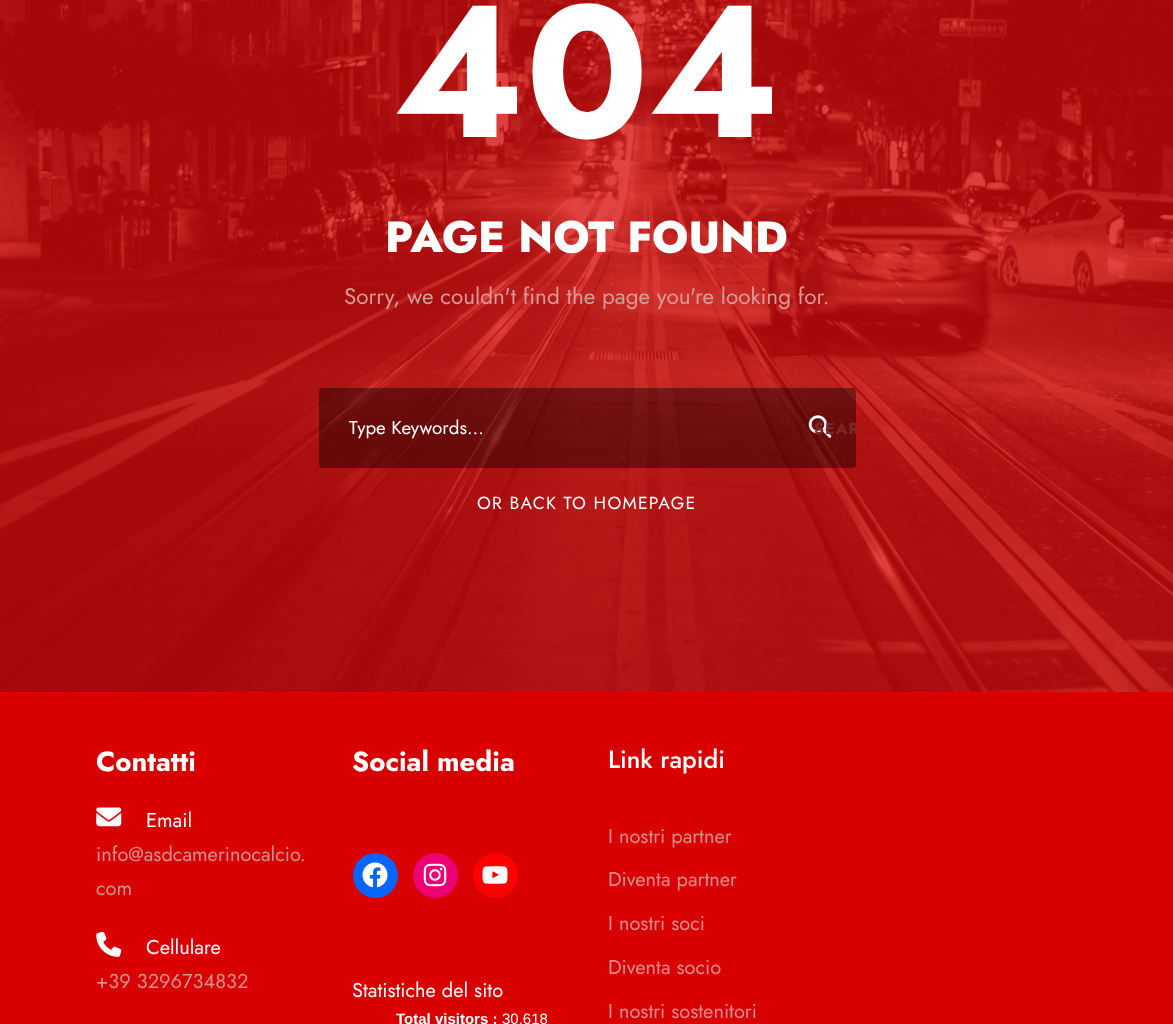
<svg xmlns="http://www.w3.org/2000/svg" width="1173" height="1024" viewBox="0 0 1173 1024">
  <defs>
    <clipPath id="clip1"><rect x="774" y="388" width="82" height="80"/></clipPath>
  </defs>
  <rect width="100%" height="100%" fill="rgb(216,0,0)"/>
  <image x="0" y="0" width="1173" height="692" href="pic1.png"/>
  <text x="394" y="137" font-family="Jost" font-size="187.5" font-weight="bold" fill="rgb(255,255,255)">404</text>
  <text x="385" y="252" font-family="Jost" font-size="43.75" font-weight="800" fill="rgb(255,255,255)">PAGE NOT FOUND</text>
  <text x="344" y="304" font-family="Jost" font-size="22.5" fill="rgb(216,153,153)">Sorry, we couldn't find the page you're looking for.</text>
  <rect x="319" y="388" width="537" height="80" rx="4" fill="rgba(0,0,0,0.4)"/>
  <text x="349" y="434" font-family="Jost" font-size="18.75" fill="rgb(255,255,255)">Type Keywords...</text>
  <image x="808" y="415" width="24" height="23" href="pic2.png"/>
  <g clip-path="url(#clip1)">
    <text x="814" y="434" font-family="Jost" font-size="16" font-weight="bold" letter-spacing="1" fill="rgb(123,40,39)">SEAR</text>
  </g>
  <text x="477" y="509" font-family="Jost" font-size="17.5" letter-spacing="1.25" fill="rgb(255,255,255)">OR BACK TO HOMEPAGE</text>
  <text x="96" y="771" font-family="Jost" font-size="27.5" font-weight="bold" fill="rgb(255,255,255)">Contatti</text>
  <image x="96" y="807" width="26" height="20" href="pic3.png"/>
  <text x="146" y="827" font-family="Jost" font-size="20" fill="rgb(255,255,255)">Email</text>
  <g font-family="Jost" font-size="20" fill="rgb(216,143,143)">
    <text>
      <tspan x="96" y="861">info@asdcamerinocalcio.</tspan>
      <tspan x="96" y="895">com</tspan>
    </text>
  </g>
  <image x="96" y="931" width="26" height="26" href="pic4.png"/>
  <text x="146" y="954" font-family="Jost" font-size="20" fill="rgb(255,255,255)">Cellulare</text>
  <text x="96" y="988" font-family="Jost" font-size="20" fill="rgb(216,143,143)">+39 3296734832</text>
  <text x="352" y="771" font-family="Jost" font-size="27.5" font-weight="bold" fill="rgb(255,255,255)">Social media</text>
  <circle cx="375.5" cy="875.5" r="22.5" fill="rgb(8,102,255)"/>
  <image x="362" y="862" width="26" height="26" href="pic5.png"/>
  <circle cx="435.5" cy="875.5" r="22.5" fill="rgb(240,0,117)"/>
  <image x="423" y="863" width="24" height="24" href="pic6.png"/>
  <circle cx="495.5" cy="875.5" r="22.5" fill="rgb(255,0,0)"/>
  <image x="482" y="866" width="26" height="18" href="pic7.png"/>
  <text x="352" y="997" font-family="Jost" font-size="20" fill="rgb(255,255,255)">Statistiche del sito</text>
  <text x="396" y="1024" font-family="Liberation Sans" font-size="15" font-weight="bold" fill="rgb(255,255,255)">Total visitors :</text>
  <text x="502" y="1024" font-family="Liberation Sans" font-size="15" fill="rgb(255,255,255)">30,618</text>
  <text x="608" y="768" font-family="Jost" font-size="25" font-weight="500" fill="rgb(255,255,255)">Link rapidi</text>
  <g font-family="Jost" font-size="20" fill="rgb(216,143,143)">
    <text x="608" y="843">I nostri partner</text>
    <text x="608" y="886">Diventa partner</text>
    <text x="608" y="930">I nostri soci</text>
    <text x="608" y="974">Diventa socio</text>
    <text x="608" y="1018">I nostri sostenitori</text>
  </g>
</svg>
